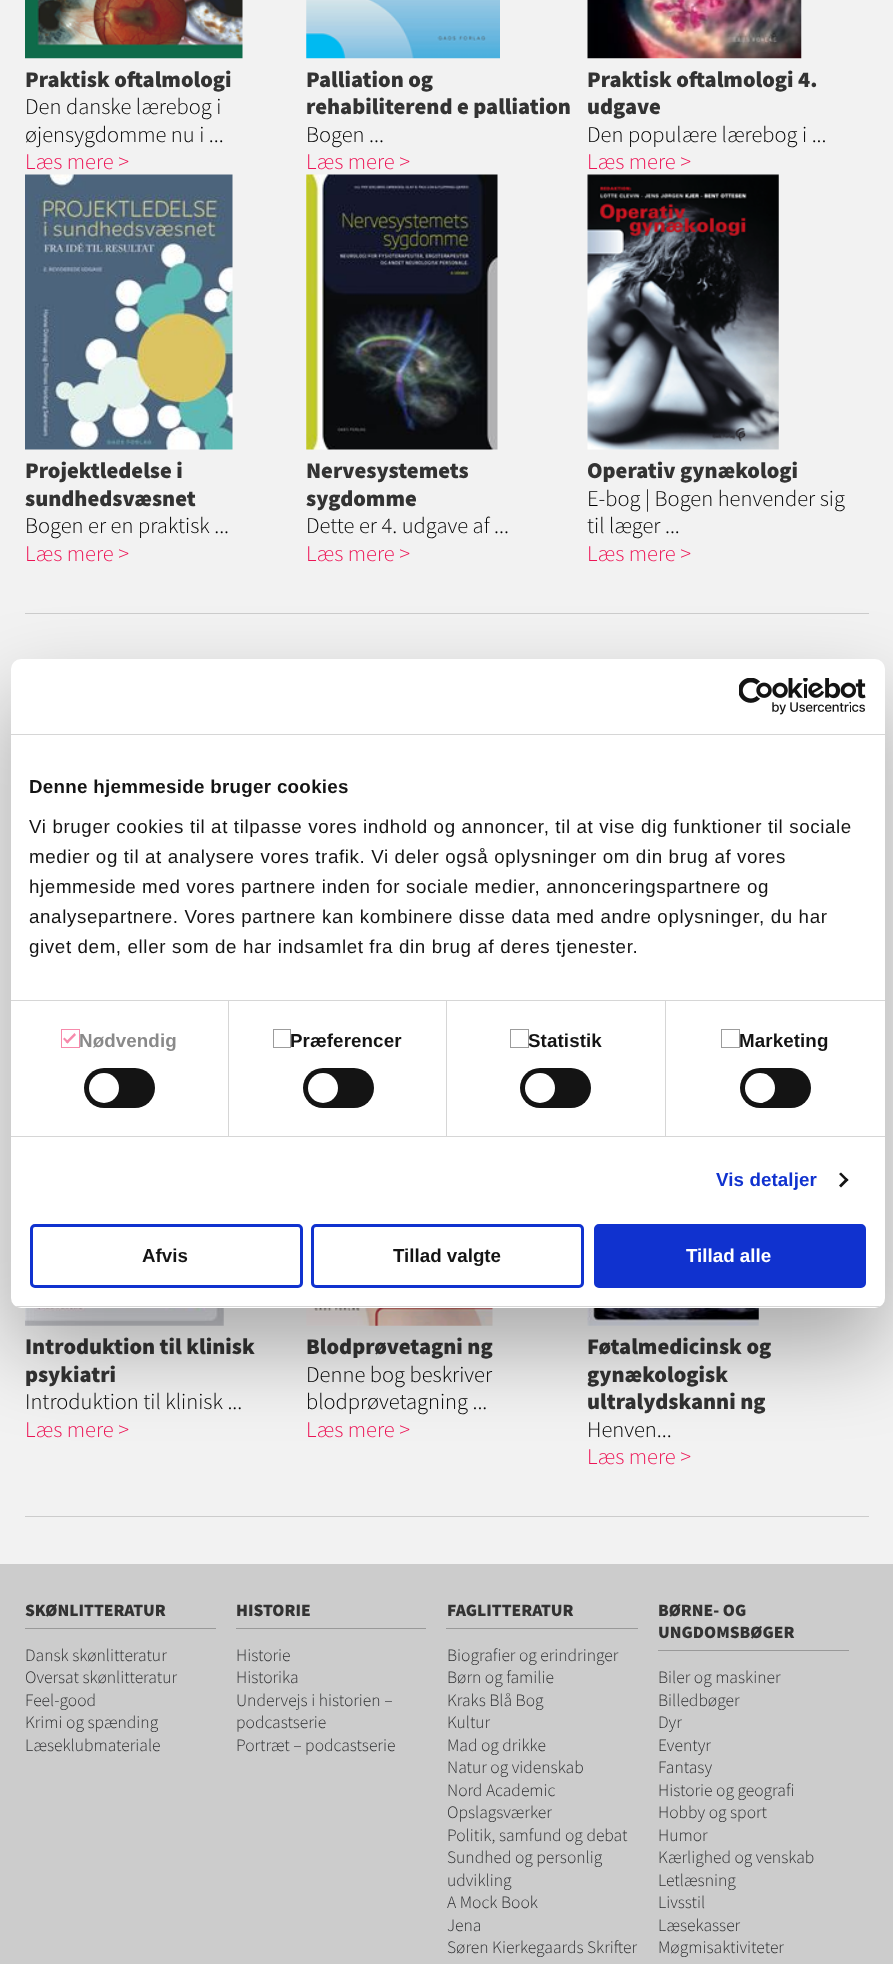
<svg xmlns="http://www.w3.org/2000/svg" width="893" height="1964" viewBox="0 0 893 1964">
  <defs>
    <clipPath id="clip1"><rect x="11" y="659" width="874" height="649" rx="10"/></clipPath>
  </defs>
  <rect width="100%" height="100%" fill="rgb(242,242,242)"/>
  <rect x="25" y="613" width="844" height="1" fill="rgb(204,204,204)"/>
  <image x="25" y="0" width="218" height="59" href="pic1.png"/>
  <text x="25" y="87" font-family="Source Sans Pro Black" font-size="22.5" font-weight="900" fill="rgb(51,51,51)">Praktisk oftalmologi</text>
  <g font-family="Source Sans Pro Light" font-size="22.5" font-weight="300" fill="rgb(0,0,0)">
    <text>
      <tspan x="25" y="114">Den danske lærebog i</tspan>
      <tspan x="25" y="142">øjensygdomme nu i ...</tspan>
    </text>
  </g>
  <text x="25" y="169" font-family="Source Sans Pro Light" font-size="22.5" font-weight="300" fill="rgb(237,21,86)">Læs mere &gt;</text>
  <image x="306" y="0" width="194" height="59" href="pic2.png"/>
  <g font-family="Source Sans Pro Black" font-size="22.5" font-weight="900" fill="rgb(51,51,51)">
    <text>
      <tspan x="306" y="87">Palliation og</tspan>
      <tspan x="306" y="114">rehabiliterend e palliation</tspan>
    </text>
  </g>
  <text x="306" y="142" font-family="Source Sans Pro Light" font-size="22.5" font-weight="300" fill="rgb(0,0,0)">Bogen ...</text>
  <text x="306" y="169" font-family="Source Sans Pro Light" font-size="22.5" font-weight="300" fill="rgb(237,21,86)">Læs mere &gt;</text>
  <image x="587" y="0" width="215" height="59" href="pic3.png"/>
  <g font-family="Source Sans Pro Black" font-size="22.5" font-weight="900" fill="rgb(51,51,51)">
    <text>
      <tspan x="587" y="87">Praktisk oftalmologi 4.</tspan>
      <tspan x="587" y="114">udgave</tspan>
    </text>
  </g>
  <text x="587" y="142" font-family="Source Sans Pro Light" font-size="22.5" font-weight="300" fill="rgb(0,0,0)">Den populære lærebog i ...</text>
  <text x="587" y="169" font-family="Source Sans Pro Light" font-size="22.5" font-weight="300" fill="rgb(237,21,86)">Læs mere &gt;</text>
  <image x="25" y="174" width="208" height="276" href="pic4.png"/>
  <g font-family="Source Sans Pro Black" font-size="22.5" font-weight="900" fill="rgb(51,51,51)">
    <text>
      <tspan x="25" y="478">Projektledelse i</tspan>
      <tspan x="25" y="506">sundhedsvæsnet</tspan>
    </text>
  </g>
  <text x="25" y="533" font-family="Source Sans Pro Light" font-size="22.5" font-weight="300" fill="rgb(0,0,0)">Bogen er en praktisk ...</text>
  <text x="25" y="561" font-family="Source Sans Pro Light" font-size="22.5" font-weight="300" fill="rgb(237,21,86)">Læs mere &gt;</text>
  <image x="306" y="174" width="192" height="276" href="pic5.png"/>
  <g font-family="Source Sans Pro Black" font-size="22.5" font-weight="900" fill="rgb(51,51,51)">
    <text>
      <tspan x="306" y="478">Nervesystemets</tspan>
      <tspan x="306" y="506">sygdomme</tspan>
    </text>
  </g>
  <text x="306" y="533" font-family="Source Sans Pro Light" font-size="22.5" font-weight="300" fill="rgb(0,0,0)">Dette er 4. udgave af ...</text>
  <text x="306" y="561" font-family="Source Sans Pro Light" font-size="22.5" font-weight="300" fill="rgb(237,21,86)">Læs mere &gt;</text>
  <image x="587" y="174" width="192" height="276" href="pic6.png"/>
  <text x="587" y="478" font-family="Source Sans Pro Black" font-size="22.5" font-weight="900" fill="rgb(51,51,51)">Operativ gynækologi</text>
  <g font-family="Source Sans Pro Light" font-size="22.5" font-weight="300" fill="rgb(0,0,0)">
    <text>
      <tspan x="587" y="506">E-bog | Bogen henvender sig</tspan>
      <tspan x="587" y="533">til læger ...</tspan>
    </text>
  </g>
  <text x="587" y="561" font-family="Source Sans Pro Light" font-size="22.5" font-weight="300" fill="rgb(237,21,86)">Læs mere &gt;</text>
  <rect x="25" y="1516" width="844" height="1" fill="rgb(204,204,204)"/>
  <image x="25" y="1308" width="199" height="18" href="pic7.png"/>
  <g font-family="Source Sans Pro Black" font-size="22.5" font-weight="900" fill="rgb(51,51,51)">
    <text>
      <tspan x="25" y="1354">Introduktion til klinisk</tspan>
      <tspan x="25" y="1382">psykiatri</tspan>
    </text>
  </g>
  <text x="25" y="1409" font-family="Source Sans Pro Light" font-size="22.5" font-weight="300" fill="rgb(0,0,0)">Introduktion til klinisk ...</text>
  <text x="25" y="1437" font-family="Source Sans Pro Light" font-size="22.5" font-weight="300" fill="rgb(237,21,86)">Læs mere &gt;</text>
  <image x="306" y="1308" width="187" height="18" href="pic8.png"/>
  <text x="306" y="1354" font-family="Source Sans Pro Black" font-size="22.5" font-weight="900" fill="rgb(51,51,51)">Blodprøvetagni ng</text>
  <g font-family="Source Sans Pro Light" font-size="22.5" font-weight="300" fill="rgb(0,0,0)">
    <text>
      <tspan x="306" y="1382">Denne bog beskriver</tspan>
      <tspan x="306" y="1409">blodprøvetagning ...</tspan>
    </text>
  </g>
  <text x="306" y="1437" font-family="Source Sans Pro Light" font-size="22.5" font-weight="300" fill="rgb(237,21,86)">Læs mere &gt;</text>
  <image x="587" y="1308" width="172" height="18" href="pic9.png"/>
  <g font-family="Source Sans Pro Black" font-size="22.5" font-weight="900" fill="rgb(51,51,51)">
    <text>
      <tspan x="587" y="1354">Føtalmedicinsk og</tspan>
      <tspan x="587" y="1382">gynækologisk</tspan>
      <tspan x="587" y="1409">ultralydskanni ng</tspan>
    </text>
  </g>
  <text x="587" y="1437" font-family="Source Sans Pro Light" font-size="22.5" font-weight="300" fill="rgb(0,0,0)">Henven...</text>
  <text x="587" y="1464" font-family="Source Sans Pro Light" font-size="22.5" font-weight="300" fill="rgb(237,21,86)">Læs mere &gt;</text>
  <rect x="11" y="699" width="874" height="649" rx="10" fill="rgba(0,0,0,0.3)" filter="blur(42.5px)"/>
  <rect x="11" y="659" width="874" height="649" rx="10" fill="rgb(255,255,255)"/>
  <rect x="11" y="734" width="874" height="1" fill="rgb(214,214,214)"/>
  <image x="739" y="678" width="127" height="37" href="pic10.png"/>
  <rect x="11" y="1000" width="874" height="1" fill="rgb(214,214,214)"/>
  <text x="29" y="793" font-family="Liberation Sans" font-size="18.75" font-weight="bold" letter-spacing="0.3" fill="rgb(20,20,20)">Denne hjemmeside bruger cookies</text>
  <g font-family="Liberation Sans" font-size="18.75" letter-spacing="0.62" fill="rgb(20,20,20)">
    <text>
      <tspan x="29" y="833">Vi bruger cookies til at tilpasse vores indhold og annoncer, til at vise dig funktioner til sociale</tspan>
      <tspan x="29" y="863">medier og til at analysere vores trafik. Vi deler også oplysninger om din brug af vores</tspan>
      <tspan x="29" y="893">hjemmeside med vores partnere inden for sociale medier, annonceringspartnere og</tspan>
      <tspan x="29" y="923">analysepartnere. Vores partnere kan kombinere disse data med andre oplysninger, du har</tspan>
      <tspan x="29" y="953">givet dem, eller som de har indsamlet fra din brug af deres tjenester.</tspan>
    </text>
  </g>
  <rect x="11" y="1136" width="874" height="1" fill="rgb(214,214,214)"/>
  <rect x="228" y="1001" width="1" height="135" fill="rgb(214,214,214)"/>
  <rect x="61.5" y="1029.5" width="18" height="18" fill="none" stroke="rgb(246,138,171)"/>
  <path d="M74.5 1033L76 1035L67.5 1043.5L65.5 1042Z" fill="rgb(246,138,171)"/>
  <path d="M64.5 1037.5L69 1042L67.5 1043.5L63 1039Z" fill="rgb(246,138,171)"/>
  <text x="79" y="1047" font-family="Liberation Sans" font-size="18.75" font-weight="bold" letter-spacing="0.1" fill="rgb(138,138,138)">Nødvendig</text>
  <rect x="84" y="1068" width="71" height="40" rx="20" fill="rgb(20,20,20)"/>
  <circle cx="104" cy="1088" r="15" fill="rgb(255,255,255)"/>
  <rect x="446" y="1001" width="1" height="135" fill="rgb(214,214,214)"/>
  <rect x="273.5" y="1029.5" width="17" height="18" fill="none" stroke="rgb(156,156,156)"/>
  <text x="290" y="1047" font-family="Liberation Sans" font-size="18.75" font-weight="bold" letter-spacing="0.1" fill="rgb(20,20,20)">Præferencer</text>
  <rect x="303" y="1068" width="71" height="40" rx="20" fill="rgb(20,20,20)"/>
  <circle cx="323" cy="1088" r="15" fill="rgb(255,255,255)"/>
  <rect x="665" y="1001" width="1" height="135" fill="rgb(214,214,214)"/>
  <rect x="510.5" y="1029.5" width="18" height="18" fill="none" stroke="rgb(156,156,156)"/>
  <text x="528" y="1047" font-family="Liberation Sans" font-size="18.75" font-weight="bold" letter-spacing="0.1" fill="rgb(20,20,20)">Statistik</text>
  <rect x="520" y="1068" width="71" height="40" rx="20" fill="rgb(20,20,20)"/>
  <circle cx="540" cy="1088" r="15" fill="rgb(255,255,255)"/>
  <rect x="721.5" y="1029.5" width="18" height="18" fill="none" stroke="rgb(156,156,156)"/>
  <text x="739" y="1047" font-family="Liberation Sans" font-size="18.75" font-weight="bold" letter-spacing="0.1" fill="rgb(20,20,20)">Marketing</text>
  <rect x="740" y="1068" width="71" height="40" rx="20" fill="rgb(20,20,20)"/>
  <circle cx="760" cy="1088" r="15" fill="rgb(255,255,255)"/>
  <text x="716" y="1186" font-family="Liberation Sans" font-size="18.75" font-weight="bold" letter-spacing="0.1" fill="rgb(16,50,207)">Vis detaljer</text>
  <path d="M841 1172.5L848.5 1180L846.5 1181.5L839 1174Z" fill="rgb(20,20,20)"/>
  <path d="M846.5 1178L848.5 1180L841 1187.5L839 1185.5Z" fill="rgb(20,20,20)"/>
  <g clip-path="url(#clip1)">
    <rect x="11" y="1306" width="874" height="1" fill="rgb(214,214,214)"/>
  </g>
  <rect x="31.5" y="1225.5" width="270" height="61" rx="3.5" fill="none" stroke="rgb(16,50,207)" stroke-width="3"/>
  <text x="142" y="1262" font-family="Liberation Sans" font-size="18.75" font-weight="bold" fill="rgb(20,20,20)">Afvis</text>
  <rect x="312.5" y="1225.5" width="270" height="61" rx="3.5" fill="none" stroke="rgb(16,50,207)" stroke-width="3"/>
  <text x="393" y="1262" font-family="Liberation Sans" font-size="18.75" font-weight="bold" fill="rgb(20,20,20)">Tillad valgte</text>
  <rect x="595.5" y="1225.5" width="269" height="61" rx="3.5" fill="rgb(16,50,207)" stroke="rgb(16,50,207)" stroke-width="3"/>
  <text x="686" y="1262" font-family="Liberation Sans" font-size="18.75" font-weight="bold" fill="rgb(255,255,255)">Tillad alle</text>
  <rect x="0" y="1564" width="893" height="400" fill="rgb(204,204,204)"/>
  <rect x="25" y="1628" width="191" height="1" fill="rgb(153,153,153)"/>
  <text x="25" y="1616" font-family="Source Sans Pro Black" font-size="17.5" font-weight="900" fill="rgb(51,51,51)">SKØNLITTERATUR</text>
  <g font-family="Source Sans Pro Light" font-size="17.5" font-weight="300" fill="rgb(45,46,48)">
    <text>
      <tspan x="25" y="1661">Dansk skønlitteratur</tspan>
      <tspan x="25" y="1683">Oversat skønlitteratur</tspan>
      <tspan x="25" y="1706">Feel-good</tspan>
      <tspan x="25" y="1728">Krimi og spænding</tspan>
      <tspan x="25" y="1751">Læseklubmateriale</tspan>
    </text>
  </g>
  <rect x="236" y="1628" width="190" height="1" fill="rgb(153,153,153)"/>
  <text x="236" y="1616" font-family="Source Sans Pro Black" font-size="17.5" font-weight="900" fill="rgb(51,51,51)">HISTORIE</text>
  <g font-family="Source Sans Pro Light" font-size="17.5" font-weight="300" fill="rgb(45,46,48)">
    <text>
      <tspan x="236" y="1661">Historie</tspan>
      <tspan x="236" y="1683">Historika</tspan>
      <tspan x="236" y="1706">Undervejs i historien –</tspan>
      <tspan x="236" y="1728">podcastserie</tspan>
      <tspan x="236" y="1751">Portræt – podcastserie</tspan>
    </text>
  </g>
  <rect x="446" y="1628" width="192" height="1" fill="rgb(153,153,153)"/>
  <text x="447" y="1616" font-family="Source Sans Pro Black" font-size="17.5" font-weight="900" fill="rgb(51,51,51)">FAGLITTERATUR</text>
  <g font-family="Source Sans Pro Light" font-size="17.5" font-weight="300" fill="rgb(45,46,48)">
    <text>
      <tspan x="447" y="1661">Biografier og erindringer</tspan>
      <tspan x="447" y="1683">Børn og familie</tspan>
      <tspan x="447" y="1706">Kraks Blå Bog</tspan>
      <tspan x="447" y="1728">Kultur</tspan>
      <tspan x="447" y="1751">Mad og drikke</tspan>
      <tspan x="447" y="1773">Natur og videnskab</tspan>
      <tspan x="447" y="1796">Nord Academic</tspan>
      <tspan x="447" y="1818">Opslagsværker</tspan>
      <tspan x="447" y="1841">Politik, samfund og debat</tspan>
      <tspan x="447" y="1863">Sundhed og personlig</tspan>
      <tspan x="447" y="1886">udvikling</tspan>
      <tspan x="447" y="1908">A Mock Book</tspan>
      <tspan x="447" y="1931">Jena</tspan>
      <tspan x="447" y="1953">Søren Kierkegaards Skrifter</tspan>
    </text>
  </g>
  <rect x="658" y="1650" width="191" height="1" fill="rgb(153,153,153)"/>
  <g font-family="Source Sans Pro Black" font-size="17.5" font-weight="900" fill="rgb(51,51,51)">
    <text>
      <tspan x="658" y="1616">BØRNE- OG</tspan>
      <tspan x="658" y="1638">UNGDOMSBØGER</tspan>
    </text>
  </g>
  <g font-family="Source Sans Pro Light" font-size="17.5" font-weight="300" fill="rgb(45,46,48)">
    <text>
      <tspan x="658" y="1683">Biler og maskiner</tspan>
      <tspan x="658" y="1706">Billedbøger</tspan>
      <tspan x="658" y="1728">Dyr</tspan>
      <tspan x="658" y="1751">Eventyr</tspan>
      <tspan x="658" y="1773">Fantasy</tspan>
      <tspan x="658" y="1796">Historie og geografi</tspan>
      <tspan x="658" y="1818">Hobby og sport</tspan>
      <tspan x="658" y="1841">Humor</tspan>
      <tspan x="658" y="1863">Kærlighed og venskab</tspan>
      <tspan x="658" y="1886">Letlæsning</tspan>
      <tspan x="658" y="1908">Livsstil</tspan>
      <tspan x="658" y="1931">Læsekasser</tspan>
      <tspan x="658" y="1953">Møgmisaktiviteter</tspan>
    </text>
  </g>
</svg>
